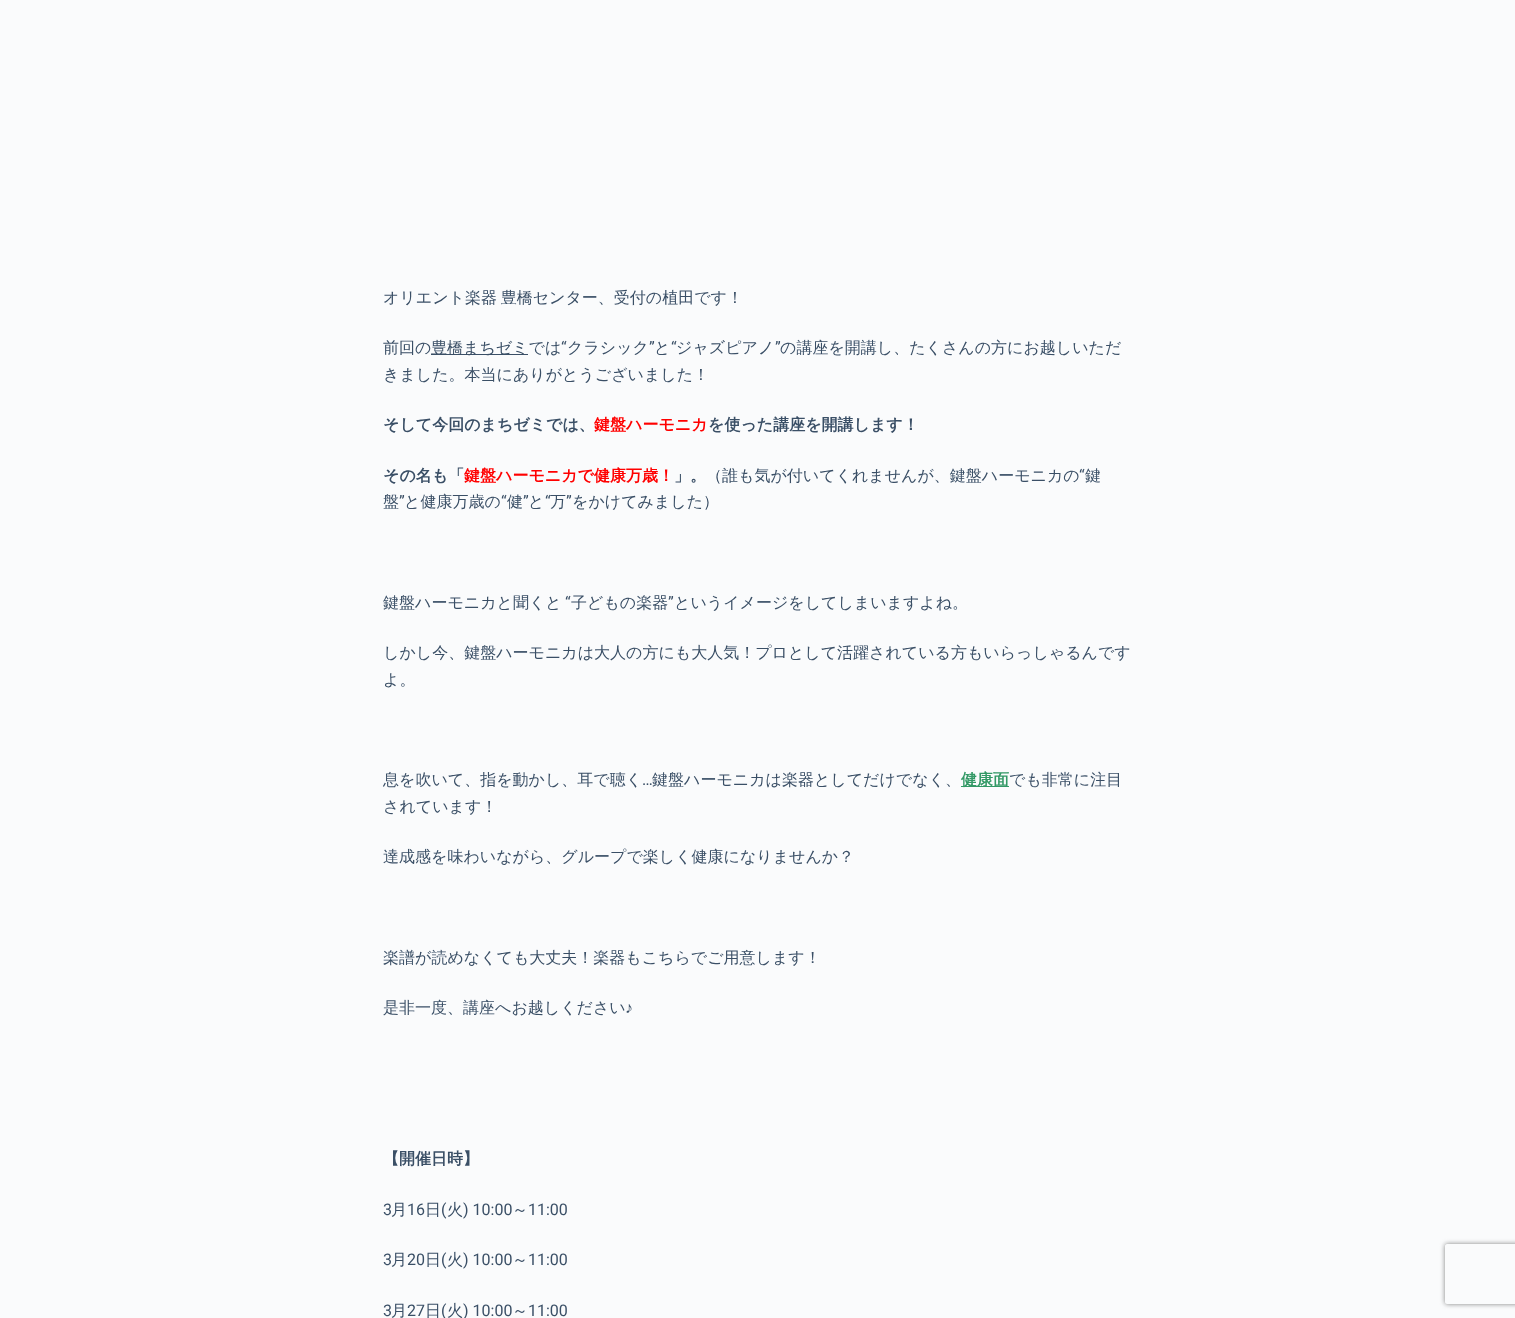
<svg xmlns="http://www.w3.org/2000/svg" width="1515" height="1318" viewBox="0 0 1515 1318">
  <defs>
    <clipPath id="clip1"><path d="M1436 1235H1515V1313H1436ZM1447 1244H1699C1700 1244 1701 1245 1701 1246V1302C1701 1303 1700 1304 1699 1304H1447C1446 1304 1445 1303 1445 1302V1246C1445 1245 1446 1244 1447 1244Z" clip-rule="evenodd"/></clipPath>
  </defs>
  <rect width="100%" height="100%" fill="rgb(250,251,252)"/>
  <g font-family="WenQuanYi Zen Hei" font-size="16" font-weight="500" fill="rgb(58,79,102)">
    <text x="383" y="303" word-spacing="-1">オリエント楽器 豊橋センター、受付の植田です！</text>
    <text x="383" y="353">前回の</text>
  </g>
  <rect x="431" y="354" width="97" height="1" fill="rgb(58,79,102)"/>
  <text x="431" y="353" font-family="WenQuanYi Zen Hei" font-size="16" font-weight="500" fill="rgb(58,79,102)">豊橋まちゼミでは</text>
  <text x="561" y="353" font-family="Roboto" font-size="16" fill="rgb(58,79,102)">“</text>
  <text x="567" y="353" font-family="WenQuanYi Zen Hei" font-size="16" font-weight="500" fill="rgb(58,79,102)">クラシック</text>
  <text x="649" y="353" font-family="Roboto" font-size="16" fill="rgb(58,79,102)">”</text>
  <text x="654" y="353" font-family="WenQuanYi Zen Hei" font-size="16" font-weight="500" fill="rgb(58,79,102)">と</text>
  <text x="671" y="353" font-family="Roboto" font-size="16" fill="rgb(58,79,102)">“</text>
  <text x="676" y="353" font-family="WenQuanYi Zen Hei" font-size="16" font-weight="500" fill="rgb(58,79,102)">ジャズピアノ</text>
  <text x="775" y="353" font-family="Roboto" font-size="16" fill="rgb(58,79,102)">”</text>
  <g font-family="WenQuanYi Zen Hei" font-size="16" font-weight="500" fill="rgb(58,79,102)">
    <text x="780" y="353">の講座を開講し、たくさんの方にお越しいただ</text>
    <text x="383" y="380">きました。本当にありがとうございました！</text>
  </g>
  <text x="383" y="430" font-family="WenQuanYi Zen Hei" font-size="16" font-weight="bold" fill="rgb(58,79,102)">そして今回のまちゼミでは、</text>
  <text x="594" y="430" font-family="WenQuanYi Zen Hei" font-size="16" font-weight="bold" fill="rgb(255,0,0)">鍵盤ハーモニカ</text>
  <g font-family="WenQuanYi Zen Hei" font-size="16" font-weight="bold" fill="rgb(58,79,102)">
    <text x="708" y="430">を使った講座を開講します！</text>
    <text x="383" y="481">その名も「</text>
  </g>
  <text x="464" y="481" font-family="WenQuanYi Zen Hei" font-size="16" font-weight="bold" fill="rgb(255,0,0)">鍵盤ハーモニカで健康万歳！</text>
  <text x="674" y="481" font-family="WenQuanYi Zen Hei" font-size="16" font-weight="bold" fill="rgb(58,79,102)">」。</text>
  <text x="706" y="481" font-family="WenQuanYi Zen Hei" font-size="16" font-weight="500" fill="rgb(58,79,102)">（誰も気が付いてくれませんが、鍵盤ハーモニカの</text>
  <text x="1079" y="481" font-family="Roboto" font-size="16" fill="rgb(58,79,102)">“</text>
  <g font-family="WenQuanYi Zen Hei" font-size="16" font-weight="500" fill="rgb(58,79,102)">
    <text x="1085" y="481">鍵</text>
    <text x="383" y="507">盤</text>
  </g>
  <text x="399" y="507" font-family="Roboto" font-size="16" fill="rgb(58,79,102)">”</text>
  <text x="404" y="507" font-family="WenQuanYi Zen Hei" font-size="16" font-weight="500" fill="rgb(58,79,102)">と健康万歳の</text>
  <text x="501" y="507" font-family="Roboto" font-size="16" fill="rgb(58,79,102)">“</text>
  <text x="507" y="507" font-family="WenQuanYi Zen Hei" font-size="16" font-weight="500" fill="rgb(58,79,102)">健</text>
  <text x="523" y="507" font-family="Roboto" font-size="16" fill="rgb(58,79,102)">”</text>
  <text x="528" y="507" font-family="WenQuanYi Zen Hei" font-size="16" font-weight="500" fill="rgb(58,79,102)">と</text>
  <text x="545" y="507" font-family="Roboto" font-size="16" fill="rgb(58,79,102)">“</text>
  <text x="550" y="507" font-family="WenQuanYi Zen Hei" font-size="16" font-weight="500" fill="rgb(58,79,102)">万</text>
  <text x="566" y="507" font-family="Roboto" font-size="16" fill="rgb(58,79,102)">”</text>
  <g font-family="WenQuanYi Zen Hei" font-size="16" font-weight="500" fill="rgb(58,79,102)">
    <text x="572" y="507">をかけてみました）</text>
    <text x="383" y="608">鍵盤ハーモニカと聞くと</text>
  </g>
  <text x="565" y="608" font-family="Roboto" font-size="16" fill="rgb(58,79,102)">“</text>
  <text x="571" y="608" font-family="WenQuanYi Zen Hei" font-size="16" font-weight="500" fill="rgb(58,79,102)">子どもの楽器</text>
  <text x="668" y="608" font-family="Roboto" font-size="16" fill="rgb(58,79,102)">”</text>
  <g font-family="WenQuanYi Zen Hei" font-size="16" font-weight="500" fill="rgb(58,79,102)">
    <text x="674" y="608">というイメージをしてしまいますよね。</text>
    <text>
      <tspan x="383" y="658">しかし今、鍵盤ハーモニカは大人の方にも大人気！プロとして活躍されている方もいらっしゃるんです</tspan>
      <tspan x="383" y="685">よ。</tspan>
    </text>
    <text x="383" y="785">息を吹いて、指を動かし、耳で聴く</text>
  </g>
  <text x="642" y="785" font-family="Roboto" font-size="16" fill="rgb(58,79,102)">…</text>
  <text x="652" y="785" font-family="WenQuanYi Zen Hei" font-size="16" font-weight="500" fill="rgb(58,79,102)">鍵盤ハーモニカは楽器としてだけでなく、</text>
  <rect x="961" y="786" width="48" height="1" fill="rgb(51,153,102)"/>
  <text x="961" y="785" font-family="WenQuanYi Zen Hei" font-size="16" font-weight="bold" fill="rgb(51,153,102)">健康面</text>
  <g font-family="WenQuanYi Zen Hei" font-size="16" font-weight="500" fill="rgb(58,79,102)">
    <text x="1009" y="785">でも非常に注目</text>
    <text x="383" y="812">されています！</text>
    <text x="383" y="862">達成感を味わいながら、グループで楽しく健康になりませんか？</text>
    <text x="383" y="963">楽譜が読めなくても大丈夫！楽器もこちらでご用意します！</text>
    <text x="383" y="1013">是非一度、講座へお越しください</text>
  </g>
  <text x="625" y="1013" font-family="Liberation Sans" font-size="16" fill="rgb(58,79,102)">♪</text>
  <text x="383" y="1164" font-family="WenQuanYi Zen Hei" font-size="16" font-weight="bold" fill="rgb(58,79,102)">【開催日時】</text>
  <text x="383" y="1215" font-family="Roboto" font-size="16" fill="rgb(58,79,102)">3</text>
  <text x="391" y="1215" font-family="WenQuanYi Zen Hei" font-size="16" font-weight="500" fill="rgb(58,79,102)">月</text>
  <text x="407" y="1215" font-family="Roboto" font-size="16" fill="rgb(58,79,102)">16</text>
  <text x="425" y="1215" font-family="WenQuanYi Zen Hei" font-size="16" font-weight="500" fill="rgb(58,79,102)">日</text>
  <text x="441" y="1215" font-family="Roboto" font-size="16" fill="rgb(58,79,102)">(</text>
  <text x="447" y="1215" font-family="WenQuanYi Zen Hei" font-size="16" font-weight="500" fill="rgb(58,79,102)">火</text>
  <text x="463" y="1215" font-family="Roboto" font-size="16" fill="rgb(58,79,102)">) 10:00</text>
  <text x="512" y="1215" font-family="WenQuanYi Zen Hei" font-size="16" font-weight="500" fill="rgb(58,79,102)">～</text>
  <g font-family="Roboto" font-size="16" fill="rgb(58,79,102)">
    <text x="528" y="1215">11:00</text>
    <text x="383" y="1265">3</text>
  </g>
  <text x="391" y="1265" font-family="WenQuanYi Zen Hei" font-size="16" font-weight="500" fill="rgb(58,79,102)">月</text>
  <text x="407" y="1265" font-family="Roboto" font-size="16" fill="rgb(58,79,102)">20</text>
  <text x="425" y="1265" font-family="WenQuanYi Zen Hei" font-size="16" font-weight="500" fill="rgb(58,79,102)">日</text>
  <text x="441" y="1265" font-family="Roboto" font-size="16" fill="rgb(58,79,102)">(</text>
  <text x="447" y="1265" font-family="WenQuanYi Zen Hei" font-size="16" font-weight="500" fill="rgb(58,79,102)">火</text>
  <text x="463" y="1265" font-family="Roboto" font-size="16" fill="rgb(58,79,102)">) 10:00</text>
  <text x="512" y="1265" font-family="WenQuanYi Zen Hei" font-size="16" font-weight="500" fill="rgb(58,79,102)">～</text>
  <g font-family="Roboto" font-size="16" fill="rgb(58,79,102)">
    <text x="528" y="1265">11:00</text>
    <text x="383" y="1316">3</text>
  </g>
  <text x="391" y="1316" font-family="WenQuanYi Zen Hei" font-size="16" font-weight="500" fill="rgb(58,79,102)">月</text>
  <text x="407" y="1316" font-family="Roboto" font-size="16" fill="rgb(58,79,102)">27</text>
  <text x="425" y="1316" font-family="WenQuanYi Zen Hei" font-size="16" font-weight="500" fill="rgb(58,79,102)">日</text>
  <text x="441" y="1316" font-family="Roboto" font-size="16" fill="rgb(58,79,102)">(</text>
  <text x="447" y="1316" font-family="WenQuanYi Zen Hei" font-size="16" font-weight="500" fill="rgb(58,79,102)">火</text>
  <text x="463" y="1316" font-family="Roboto" font-size="16" fill="rgb(58,79,102)">) 10:00</text>
  <text x="512" y="1316" font-family="WenQuanYi Zen Hei" font-size="16" font-weight="500" fill="rgb(58,79,102)">～</text>
  <text x="528" y="1316" font-family="Roboto" font-size="16" fill="rgb(58,79,102)">11:00</text>
  <g clip-path="url(#clip1)">
    <rect x="1445" y="1244" width="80" height="60" rx="2" fill="rgb(128,128,128)" filter="blur(2.5px)"/>
  </g>
</svg>
